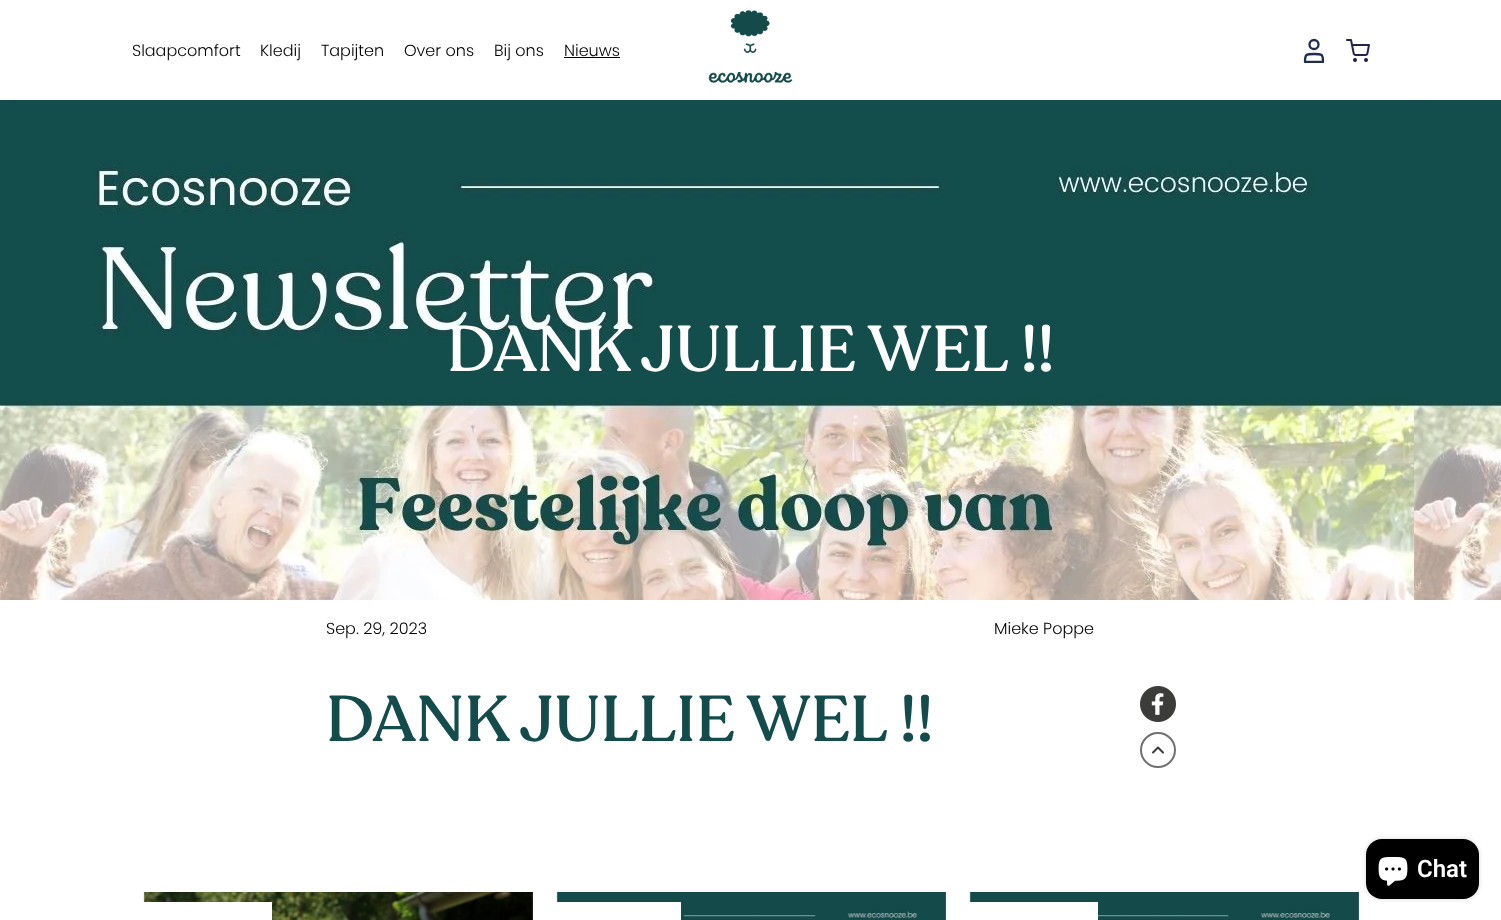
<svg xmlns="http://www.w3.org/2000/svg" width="1501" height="920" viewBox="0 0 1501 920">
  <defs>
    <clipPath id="clip1"><rect x="1302" y="39" width="24" height="24"/></clipPath>
  </defs>
  <rect width="100%" height="100%" fill="rgb(255,255,255)"/>
  <g font-family="Poppins" font-size="16" font-weight="300" fill="rgb(0,0,0)">
    <text x="132" y="56">Slaapcomfort</text>
    <text x="260" y="56">Kledij</text>
    <text x="321" y="56">Tapijten</text>
    <text x="404" y="56">Over ons</text>
    <text x="494" y="56">Bij ons</text>
    <text x="564" y="56">Nieuws</text>
  </g>
  <rect x="564" y="57" width="56" height="1" fill="rgb(0,0,0)"/>
  <image x="708" y="10" width="85" height="73" href="pic1.png"/>
  <circle cx="1314" cy="44.5" r="4.5" fill="none" stroke="rgb(30,45,81)" stroke-width="2.3"/>
  <g clip-path="url(#clip1)">
    <path d="M1323 62C1323 54 1322 54 1314 54C1306 54 1305 54 1305 62Z" fill="none" stroke="rgb(30,45,81)" stroke-width="2.3" stroke-linecap="round" stroke-linejoin="round"/>
  </g>
  <image x="1346" y="39" width="24" height="23" href="pic2.png"/>
  <image x="0" y="100" width="1501" height="500" href="pic3.png"/>
  <text x="447" y="371" font-family="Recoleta" font-size="64" font-weight="500" letter-spacing="0.25" fill="rgb(255,255,255)">DANK JULLIE WEL !!</text>
  <g font-family="Poppins" font-size="16" font-weight="300" fill="rgb(0,0,0)">
    <text x="326" y="634">Sep. 29, 2023</text>
    <text x="994" y="634">Mieke Poppe</text>
  </g>
  <text x="326" y="741" font-family="Recoleta" font-size="64" font-weight="500" letter-spacing="0.25" fill="rgb(20,75,75)">DANK JULLIE WEL !!</text>
  <image x="1140" y="686" width="36" height="36" href="pic4.png"/>
  <circle cx="1158" cy="750" r="17" fill="none" stroke="rgb(112,112,112)" stroke-width="2"/>
  <path d="M1163 752.5L1158 747.5L1153 752.5" fill="none" stroke="rgb(60,60,59)" stroke-width="2" stroke-linecap="round" stroke-linejoin="round"/>
  <image x="143" y="892" width="390" height="28" href="pic5.png"/>
  <rect x="143" y="902" width="129" height="18" fill="rgb(255,255,255)"/>
  <image x="556" y="892" width="390" height="28" href="pic6.png"/>
  <rect x="556" y="902" width="125" height="18" fill="rgb(255,255,255)"/>
  <image x="969" y="892" width="390" height="28" href="pic7.png"/>
  <rect x="969" y="902" width="129" height="18" fill="rgb(255,255,255)"/>
  <rect x="1366" y="839" width="113" height="60" rx="16" fill="rgba(0,0,0,0.15)" filter="blur(2.5px)"/>
  <rect x="1366" y="839" width="113" height="60" rx="16" fill="rgb(0,0,0)"/>
  <image x="1378" y="857" width="30" height="29" href="pic8.png"/>
  <text x="1417" y="877" font-family="Roboto" font-size="24" font-weight="600" fill="rgb(255,255,255)">Chat</text>
</svg>
